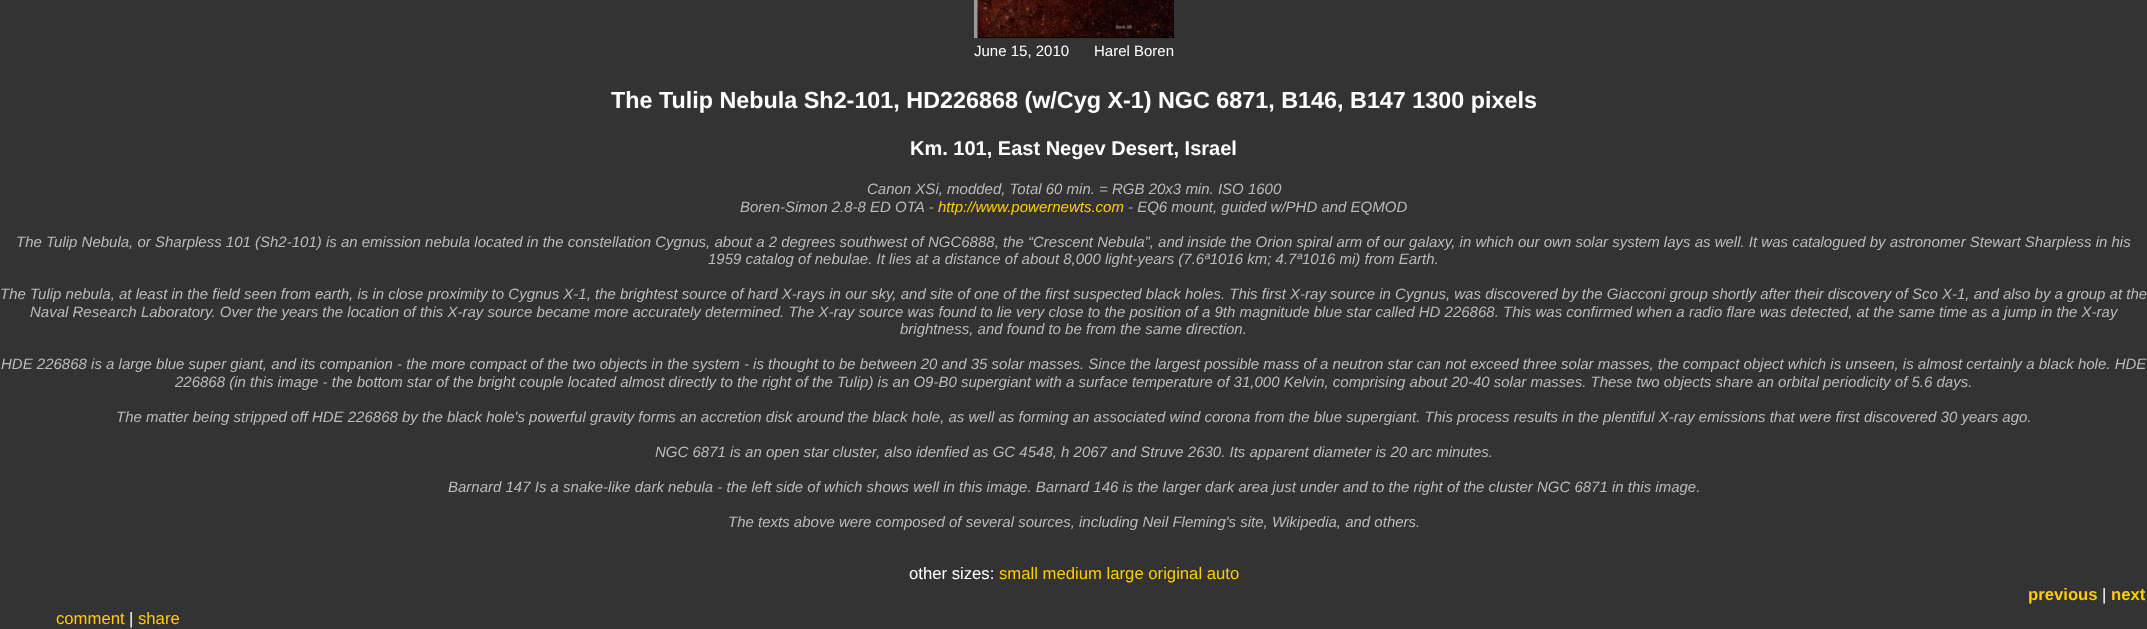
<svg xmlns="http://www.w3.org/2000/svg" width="2147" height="629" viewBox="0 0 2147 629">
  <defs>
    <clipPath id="clip1"><rect x="974" y="0" width="200" height="38"/></clipPath>
  </defs>
  <rect width="100%" height="100%" fill="rgb(51,51,51)"/>
  <g clip-path="url(#clip1)">
    <path d="M974 44V-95L978-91V40Z" fill="rgb(153,153,153)"/>
  </g>
  <rect x="978" y="0" width="196" height="38" fill="rgb(0,0,0)"/>
  <image x="977" y="0" width="197" height="38" href="pic1.png"/>
  <g font-family="Liberation Sans" font-size="15" fill="rgb(255,255,255)">
    <text x="974" y="56">June 15, 2010</text>
    <text x="1094" y="56">Harel Boren</text>
  </g>
  <text x="611" y="108" font-family="Liberation Sans" font-size="23.35" font-weight="bold" fill="rgb(255,255,255)">The Tulip Nebula Sh2-101, HD226868 (w/Cyg X-1) NGC 6871, B146, B147 1300 pixels</text>
  <text x="910" y="155" font-family="Liberation Sans" font-size="20" font-weight="bold" fill="rgb(255,255,255)">Km. 101, East Negev Desert, Israel</text>
  <g font-family="Liberation Sans" font-size="15" font-style="italic" fill="rgb(187,187,187)">
    <text x="867" y="194">Canon XSi, modded, Total 60 min. = RGB 20x3 min. ISO 1600</text>
    <text x="740" y="212">Boren-Simon 2.8-8 ED OTA -</text>
  </g>
  <text x="938" y="212" font-family="Liberation Sans" font-size="15" font-style="italic" fill="rgb(255,204,0)">http://www.powernewts.com</text>
  <g font-family="Liberation Sans" font-size="15" font-style="italic" fill="rgb(187,187,187)">
    <text x="1128" y="212">- EQ6 mount, guided w/PHD and EQMOD</text>
    <text x="16" y="247">The Tulip Nebula, or Sharpless 101 (Sh2-101) is an emission nebula located in the constellation Cygnus, about a 2 degrees southwest of NGC6888, the “Crescent Nebula”, and inside the Orion spiral arm of our galaxy, in which our own solar system lays as well. It was catalogued by astronomer Stewart Sharpless in his</text>
    <text x="708" y="264">1959 catalog of nebulae. It lies at a distance of about 8,000 light-years (7.6ª1016 km; 4.7ª1016 mi) from Earth.</text>
    <text x="0" y="299">The Tulip nebula, at least in the field seen from earth, is in close proximity to Cygnus X-1, the brightest source of hard X-rays in our sky, and site of one of the first suspected black holes. This first X-ray source in Cygnus, was discovered by the Giacconi group shortly after their discovery of Sco X-1, and also by a group at the</text>
    <text x="30" y="317">Naval Research Laboratory. Over the years the location of this X-ray source became more accurately determined. The X-ray source was found to lie very close to the position of a 9th magnitude blue star called HD 226868. This was confirmed when a radio flare was detected, at the same time as a jump in the X-ray</text>
    <text x="900" y="334">brightness, and found to be from the same direction.</text>
    <text x="1" y="369">HDE 226868 is a large blue super giant, and its companion - the more compact of the two objects in the system - is thought to be between 20 and 35 solar masses. Since the largest possible mass of a neutron star can not exceed three solar masses, the compact object which is unseen, is almost certainly a black hole. HDE</text>
    <text x="175" y="387">226868 (in this image - the bottom star of the bright couple located almost directly to the right of the Tulip) is an O9-B0 supergiant with a surface temperature of 31,000 Kelvin, comprising about 20-40 solar masses. These two objects share an orbital periodicity of 5.6 days.</text>
    <text x="116" y="422">The matter being stripped off HDE 226868 by the black hole's powerful gravity forms an accretion disk around the black hole, as well as forming an associated wind corona from the blue supergiant. This process results in the plentiful X-ray emissions that were first discovered 30 years ago.</text>
    <text x="655" y="457">NGC 6871 is an open star cluster, also idenfied as GC 4548, h 2067 and Struve 2630. Its apparent diameter is 20 arc minutes.</text>
    <text x="448" y="492">Barnard 147 Is a snake-like dark nebula - the left side of which shows well in this image. Barnard 146 is the larger dark area just under and to the right of the cluster NGC 6871 in this image.</text>
    <text x="728" y="527">The texts above were composed of several sources, including Neil Fleming's site, Wikipedia, and others.</text>
  </g>
  <text x="909" y="579" font-family="Liberation Sans" font-size="16.7" fill="rgb(255,255,255)">other sizes:</text>
  <text x="999" y="579" font-family="Liberation Sans" font-size="16.7" fill="rgb(255,204,0)">small medium large original auto</text>
  <text x="2028" y="600" font-family="Liberation Sans" font-size="16.7" font-weight="bold" fill="rgb(255,204,0)">previous</text>
  <text x="2102" y="600" font-family="Liberation Sans" font-size="16.7" fill="rgb(255,255,255)">|</text>
  <text x="2111" y="600" font-family="Liberation Sans" font-size="16.7" font-weight="bold" fill="rgb(255,204,0)">next</text>
  <text x="56" y="624" font-family="Liberation Sans" font-size="16.7" fill="rgb(255,204,0)">comment</text>
  <text x="129" y="624" font-family="Liberation Sans" font-size="16.7" fill="rgb(255,255,255)">|</text>
  <text x="138" y="624" font-family="Liberation Sans" font-size="16.7" fill="rgb(255,204,0)">share</text>
</svg>
